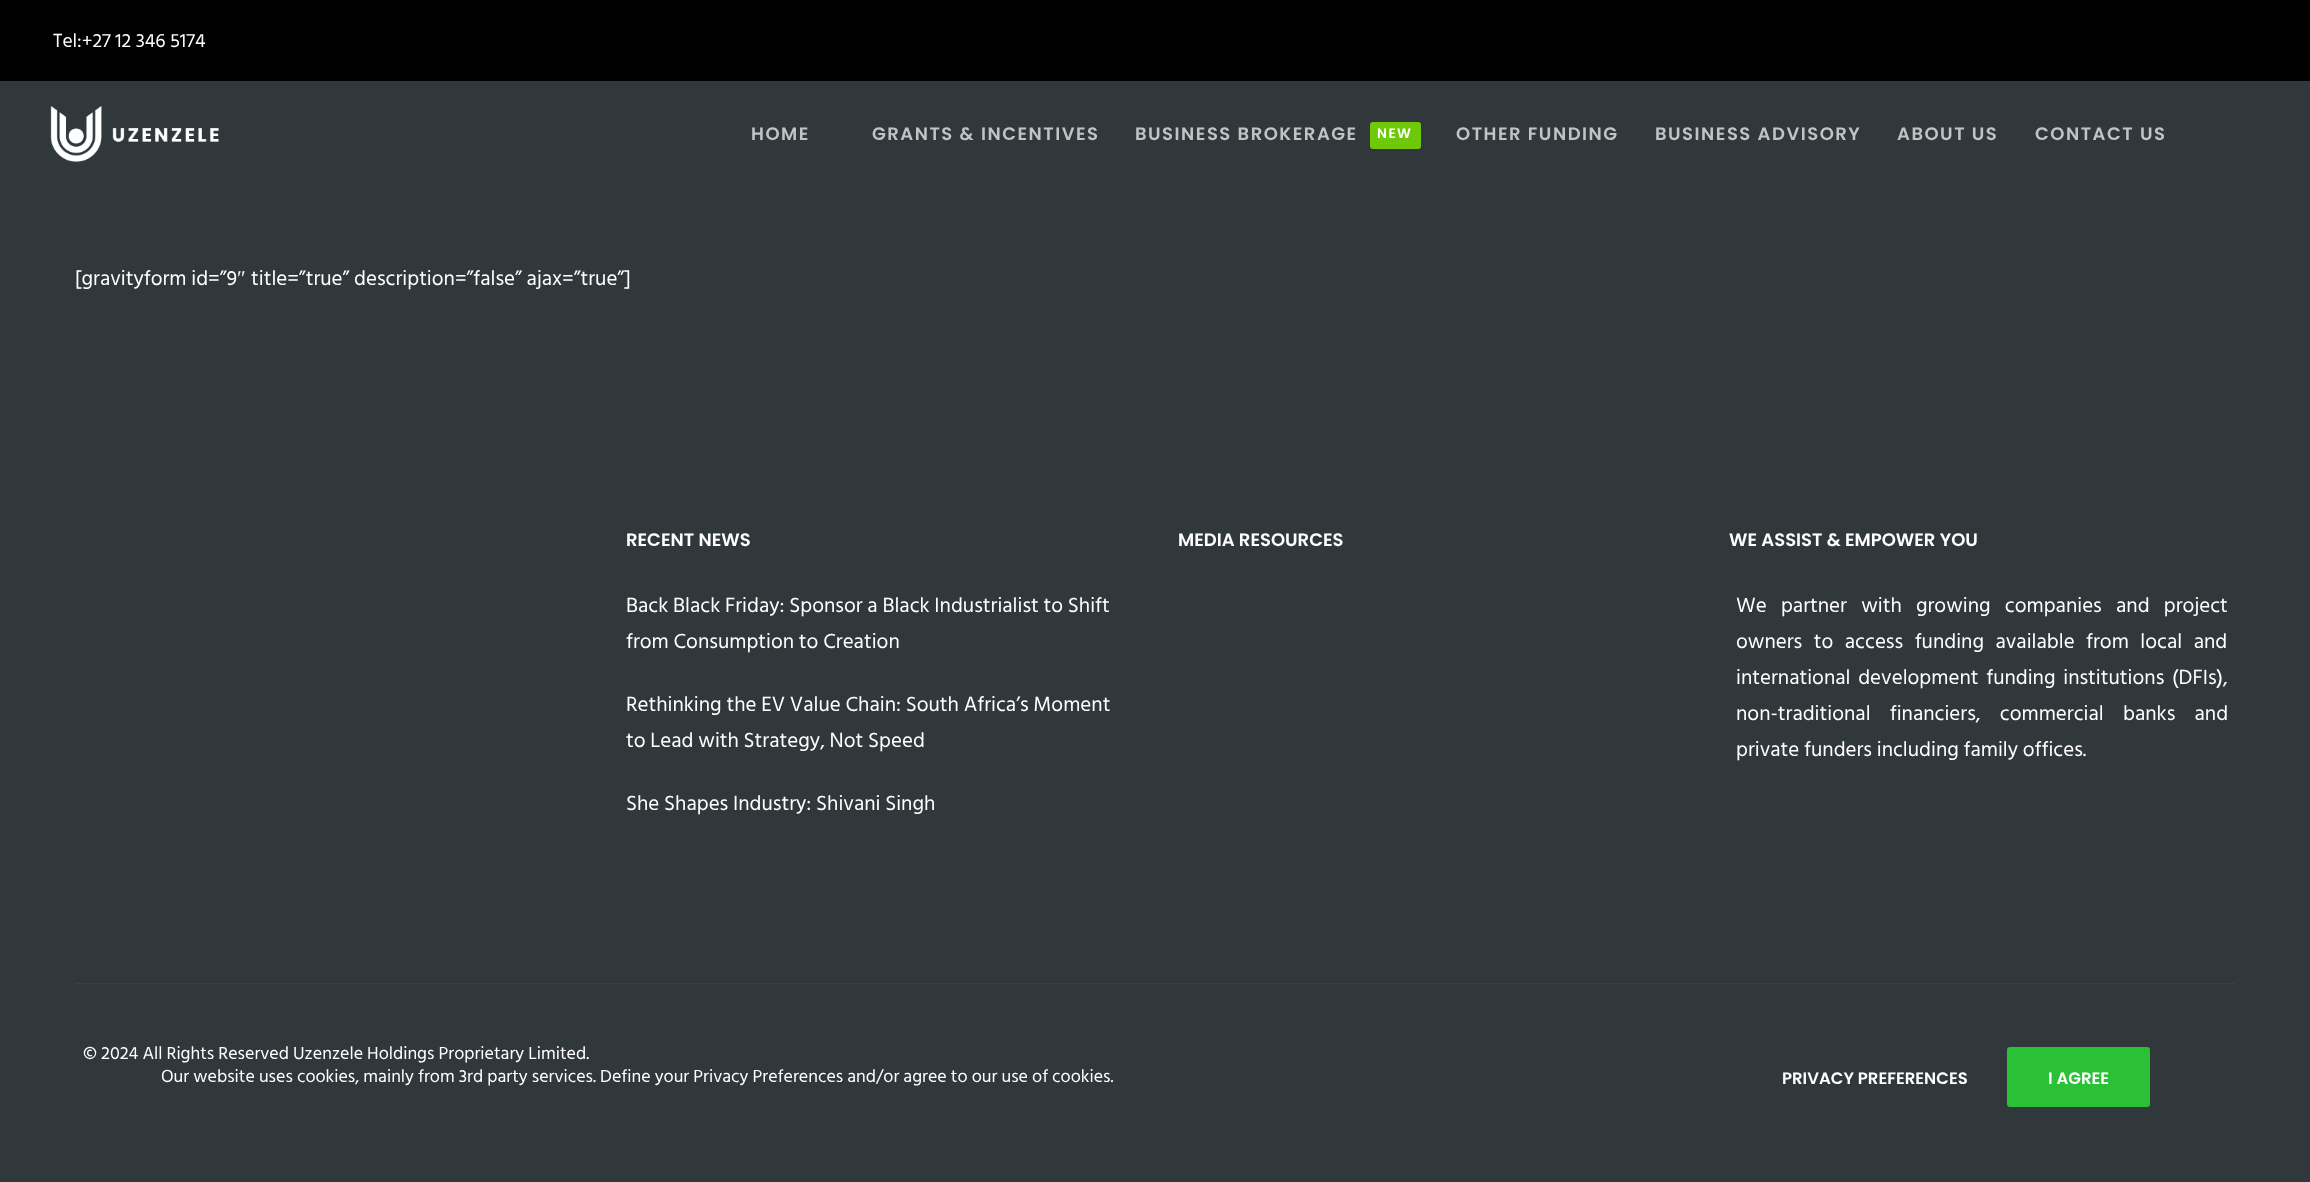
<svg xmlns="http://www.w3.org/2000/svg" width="2310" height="1182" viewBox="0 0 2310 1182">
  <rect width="100%" height="100%" fill="rgb(49,56,60)"/>
  <rect x="0" y="0" width="2310" height="81" fill="rgb(0,0,0)"/>
  <text x="53" y="47" font-family="Hind Siliguri" font-size="19.5" fill="rgb(255,255,255)">Tel:+27 12 346 5174</text>
  <image x="50" y="106" width="169" height="56" href="pic1.png"/>
  <g font-family="Poppins" font-size="18" font-weight="600" letter-spacing="1.5" fill="rgb(193,195,197)">
    <text x="751" y="140">HOME</text>
    <text x="872" y="140">GRANTS &amp; INCENTIVES</text>
    <text x="1135" y="140">BUSINESS BROKERAGE</text>
  </g>
  <rect x="1370" y="122" width="51" height="27" rx="3" fill="rgb(110,202,9)"/>
  <text x="1377" y="138" font-family="Poppins" font-size="13.5" font-weight="600" letter-spacing="1.5" fill="rgb(255,255,255)">NEW</text>
  <g font-family="Poppins" font-size="18" font-weight="600" letter-spacing="1.5" fill="rgb(193,195,197)">
    <text x="1456" y="140">OTHER FUNDING</text>
    <text x="1655" y="140">BUSINESS ADVISORY</text>
    <text x="1897" y="140">ABOUT US</text>
    <text x="2035" y="140">CONTACT US</text>
  </g>
  <text x="75" y="285" font-family="Hind Siliguri" font-size="21" fill="rgb(255,255,255)">[gravityform id=”9</text>
  <text x="237" y="285" font-family="Liberation Serif" font-size="21" fill="rgb(255,255,255)">″</text>
  <text x="251" y="285" font-family="Hind Siliguri" font-size="21" fill="rgb(255,255,255)">title=”true” description=”false” ajax=”true”]</text>
  <rect x="75" y="983" width="2160" height="1" fill="rgb(62,63,63)"/>
  <text x="626" y="546" font-family="Poppins" font-size="18" font-weight="600" fill="rgb(255,255,255)">RECENT NEWS</text>
  <g font-family="Hind Siliguri" font-size="21" fill="rgb(255,255,255)">
    <text>
      <tspan x="626" y="612">Back Black Friday: Sponsor a Black Industrialist to Shift</tspan>
      <tspan x="626" y="648">from Consumption to Creation</tspan>
    </text>
    <text>
      <tspan x="626" y="711">Rethinking the EV Value Chain: South Africa’s Moment</tspan>
      <tspan x="626" y="747">to Lead with Strategy, Not Speed</tspan>
    </text>
    <text x="626" y="810">She Shapes Industry: Shivani Singh</text>
  </g>
  <g font-family="Poppins" font-size="18" font-weight="600" fill="rgb(255,255,255)">
    <text x="1178" y="546">MEDIA RESOURCES</text>
    <text x="1729" y="546">WE ASSIST &amp; EMPOWER YOU</text>
  </g>
  <g font-family="Hind Siliguri" font-size="21" fill="rgb(255,255,255)">
    <text>
      <tspan x="1736" y="612" word-spacing="9.5">We partner with growing companies and project</tspan>
      <tspan x="1736" y="648" word-spacing="6.75">owners to access funding available from local and</tspan>
      <tspan x="1736" y="684" word-spacing="3">international development funding institutions (DFIs),</tspan>
      <tspan x="1736" y="720" word-spacing="14.5">non-traditional financiers, commercial banks and</tspan>
      <tspan x="1736" y="756">private funders including family offices.</tspan>
    </text>
  </g>
  <g font-family="Hind Siliguri" font-size="18" fill="rgb(255,255,255)">
    <text x="83" y="1059">© 2024 All Rights Reserved Uzenzele Holdings Proprietary Limited.</text>
    <text x="161" y="1082">Our website uses cookies, mainly from 3rd party services. Define your Privacy Preferences and/or agree to our use of cookies.</text>
  </g>
  <text x="1782" y="1084" font-family="Poppins" font-size="16.5" font-weight="600" fill="rgb(255,255,255)">PRIVACY PREFERENCES</text>
  <rect x="2007" y="1047" width="143" height="60" rx="3" fill="rgb(43,193,55)"/>
  <text x="2048" y="1084" font-family="Poppins" font-size="16.5" font-weight="600" fill="rgb(255,255,255)">I AGREE</text>
</svg>
